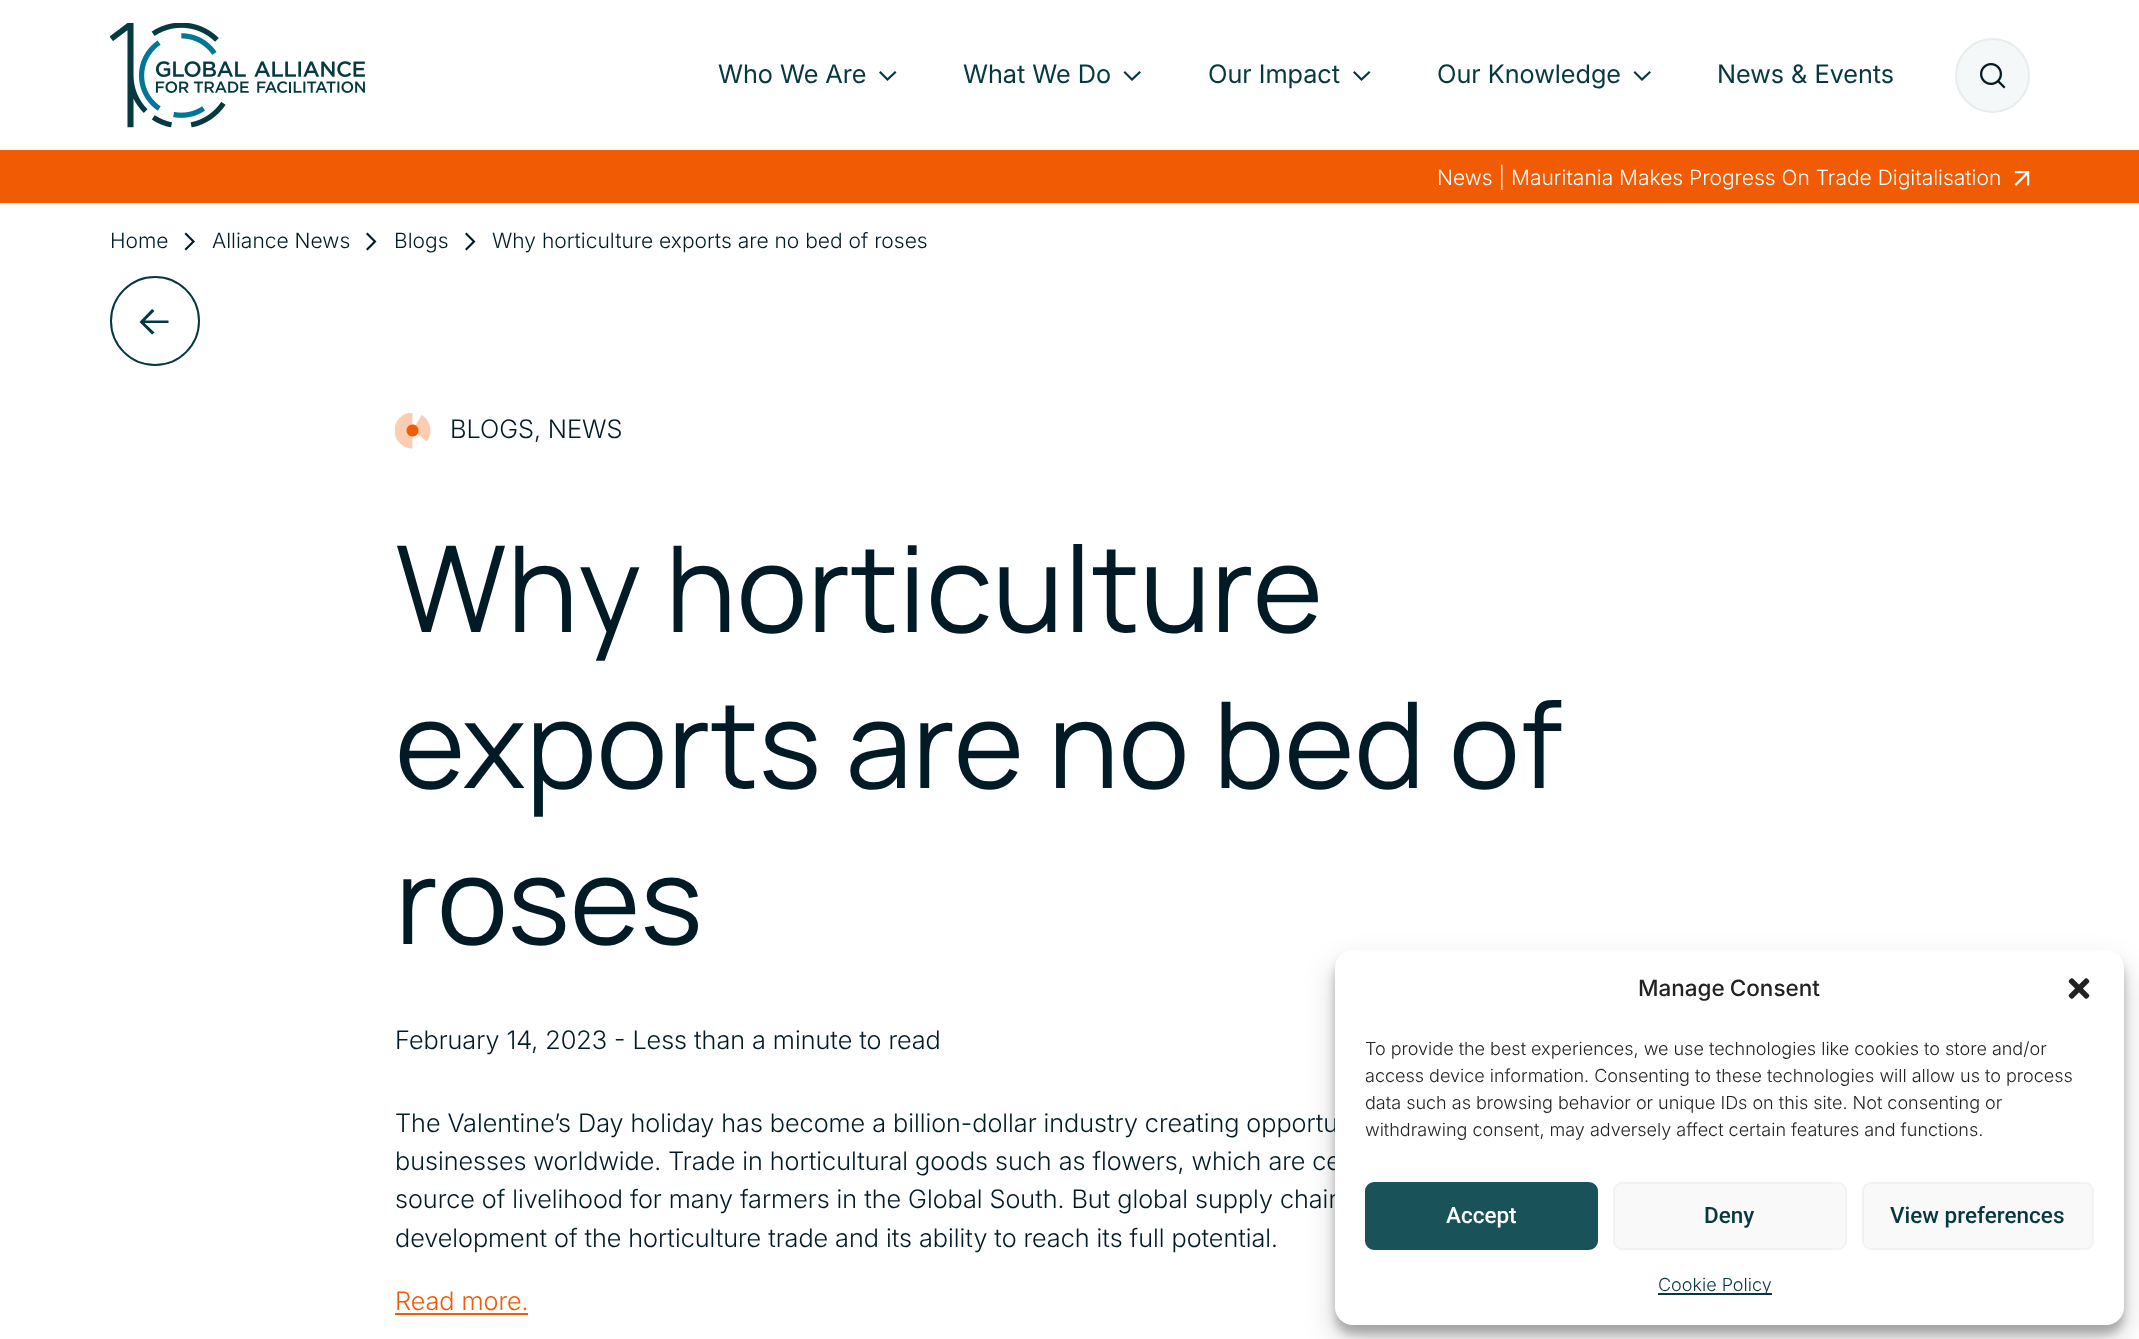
<svg xmlns="http://www.w3.org/2000/svg" width="2139" height="1339" viewBox="0 0 2139 1339">
  <rect width="100%" height="100%" fill="rgb(255,255,255)"/>
  <image x="110" y="23" width="255" height="105" href="pic1.png"/>
  <text x="718" y="83" font-family="Inter" font-size="25.5" fill="rgb(5,57,63)">Who We Are</text>
  <path d="M887.5 81L879 72.5L880.5 71L887.5 78L895 71L896.5 72.5Z" fill="rgb(5,57,63)"/>
  <text x="963" y="83" font-family="Inter" font-size="25.5" fill="rgb(5,57,63)">What We Do</text>
  <path d="M1132 81L1123.5 72.5L1125 71L1132 78L1139.5 71L1141 72.5Z" fill="rgb(5,57,63)"/>
  <text x="1208" y="83" font-family="Inter" font-size="25.5" fill="rgb(5,57,63)">Our Impact</text>
  <path d="M1361.5 81L1353 72.5L1354.5 71L1361.5 78L1369 71L1370.5 72.5Z" fill="rgb(5,57,63)"/>
  <text x="1437" y="83" font-family="Inter" font-size="25.5" fill="rgb(5,57,63)">Our Knowledge</text>
  <path d="M1642 81L1633.5 72.5L1635 71L1642 78L1649.5 71L1651 72.5Z" fill="rgb(5,57,63)"/>
  <text x="1717" y="83" font-family="Inter" font-size="25.5" fill="rgb(5,57,63)">News &amp; Events</text>
  <circle cx="1992.5" cy="75.5" r="36.5" fill="rgb(244,248,248)" stroke="rgb(231,237,237)" stroke-width="2"/>
  <image x="1980" y="63" width="26" height="26" href="pic2.png"/>
  <rect x="0" y="150" width="2139" height="53" fill="rgb(240,91,4)"/>
  <text x="1437" y="185" font-family="Inter" font-size="21" font-weight="300" fill="rgb(255,255,255)">News | Mauritania Makes Progress On Trade Digitalisation</text>
  <image x="2014" y="171" width="16" height="15" href="pic3.png"/>
  <text x="110" y="248" font-family="Inter" font-size="21" font-weight="300" fill="rgb(0,27,38)">Home</text>
  <path d="M186 250.5L184.5 249L192 241.5L184.5 234L186 232.5L195 241.5Z" fill="rgb(0,27,38)"/>
  <text x="212" y="248" font-family="Inter" font-size="21" font-weight="300" fill="rgb(0,27,38)">Alliance News</text>
  <path d="M367.5 250.5L366 249L373.5 241.5L366 234L367.5 232.5L376.5 241.5Z" fill="rgb(0,27,38)"/>
  <text x="394" y="248" font-family="Inter" font-size="21" font-weight="300" fill="rgb(0,27,38)">Blogs</text>
  <path d="M466.5 250.5L465 249L472.5 241.5L465 234L466.5 232.5L475.5 241.5Z" fill="rgb(0,27,38)"/>
  <text x="492" y="248" font-family="Inter" font-size="21" font-weight="300" fill="rgb(0,27,38)">Why horticulture exports are no bed of roses</text>
  <circle cx="155" cy="321" r="44" fill="none" stroke="rgb(5,57,63)" stroke-width="2"/>
  <path d="M152 334.5L139.5 322L152 309L154.5 311L143.5 322L154.5 332.5ZM143 320.5H168.5V323H143Z" fill="rgb(5,57,63)"/>
  <image x="395" y="413" width="36" height="36" href="pic4.png"/>
  <text x="450" y="438" font-family="'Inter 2'" font-size="25.5" font-weight="300" fill="rgb(0,27,38)">BLOGS, NEWS</text>
  <g font-family="Manrope" font-size="119.75" fill="rgb(0,27,38)">
    <text>
      <tspan x="395" y="632">Why horticulture</tspan>
      <tspan x="395" y="788">exports are no bed of</tspan>
      <tspan x="395" y="944">roses</tspan>
    </text>
  </g>
  <g font-family="'Inter 2'" font-size="25.5" font-weight="300" fill="rgb(0,27,38)">
    <text x="395" y="1049">February 14, 2023 - Less than a minute to read</text>
    <text>
      <tspan x="395" y="1132">The Valentine’s Day holiday has become a billion-dollar industry creating opportu</tspan>
      <tspan x="395" y="1170">businesses worldwide. Trade in horticultural goods such as flowers, which are ce</tspan>
      <tspan x="395" y="1208">source of livelihood for many farmers in the Global South. But global supply chain</tspan>
      <tspan x="395" y="1247">development of the horticulture trade and its ability to reach its full potential.</tspan>
    </text>
  </g>
  <text x="395" y="1310" font-family="'Inter 2'" font-size="25.5" font-weight="300" fill="rgb(240,91,4)">Read more.</text>
  <rect x="395" y="1313" width="133" height="2" fill="rgb(240,91,4)"/>
  <rect x="1335" y="959" width="789" height="375" rx="18" fill="rgba(0,0,0,0.23)" filter="blur(4.5px)"/>
  <rect x="1335" y="965" width="789" height="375" rx="18" fill="rgba(0,0,0,0.19)" filter="blur(15px)"/>
  <rect x="1335" y="950" width="789" height="375" rx="18" fill="rgb(255,255,255)"/>
  <text x="1638" y="996" word-spacing="-1" font-family="Inter" font-size="22.5" font-weight="500" fill="rgb(34,34,34)">Manage Consent</text>
  <image x="2068" y="978" width="22" height="21" href="pic5.png"/>
  <g font-family="Inter" font-size="18" font-weight="300" fill="rgb(34,34,34)">
    <text>
      <tspan x="1365" y="1055">To provide the best experiences, we use technologies like cookies to store and/or</tspan>
      <tspan x="1365" y="1082">access device information. Consenting to these technologies will allow us to process</tspan>
      <tspan x="1365" y="1109">data such as browsing behavior or unique IDs on this site. Not consenting or</tspan>
      <tspan x="1365" y="1136">withdrawing consent, may adversely affect certain features and functions.</tspan>
    </text>
  </g>
  <rect x="1366" y="1183" width="231" height="66" rx="8" fill="rgb(25,83,89)" stroke="rgb(25,83,89)" stroke-width="2"/>
  <text x="1446" y="1223" font-family="Roboto" font-size="22.5" font-weight="500" fill="rgb(255,255,255)">Accept</text>
  <rect x="1614" y="1183" width="232" height="66" rx="8" fill="rgb(249,249,249)" stroke="rgb(242,242,242)" stroke-width="2"/>
  <text x="1704" y="1223" font-family="Roboto" font-size="22.5" font-weight="500" fill="rgb(5,57,63)">Deny</text>
  <rect x="1863" y="1183" width="230" height="66" rx="8" fill="rgb(249,249,249)" stroke="rgb(242,242,242)" stroke-width="2"/>
  <text x="1890" y="1223" font-family="Roboto" font-size="22.5" font-weight="500" fill="rgb(5,57,63)">View preferences</text>
  <rect x="1658" y="1293" width="114" height="2" fill="rgb(5,57,63)"/>
  <text x="1658" y="1291" font-family="Inter" font-size="18" font-weight="300" fill="rgb(5,57,63)">Cookie Policy</text>
</svg>
